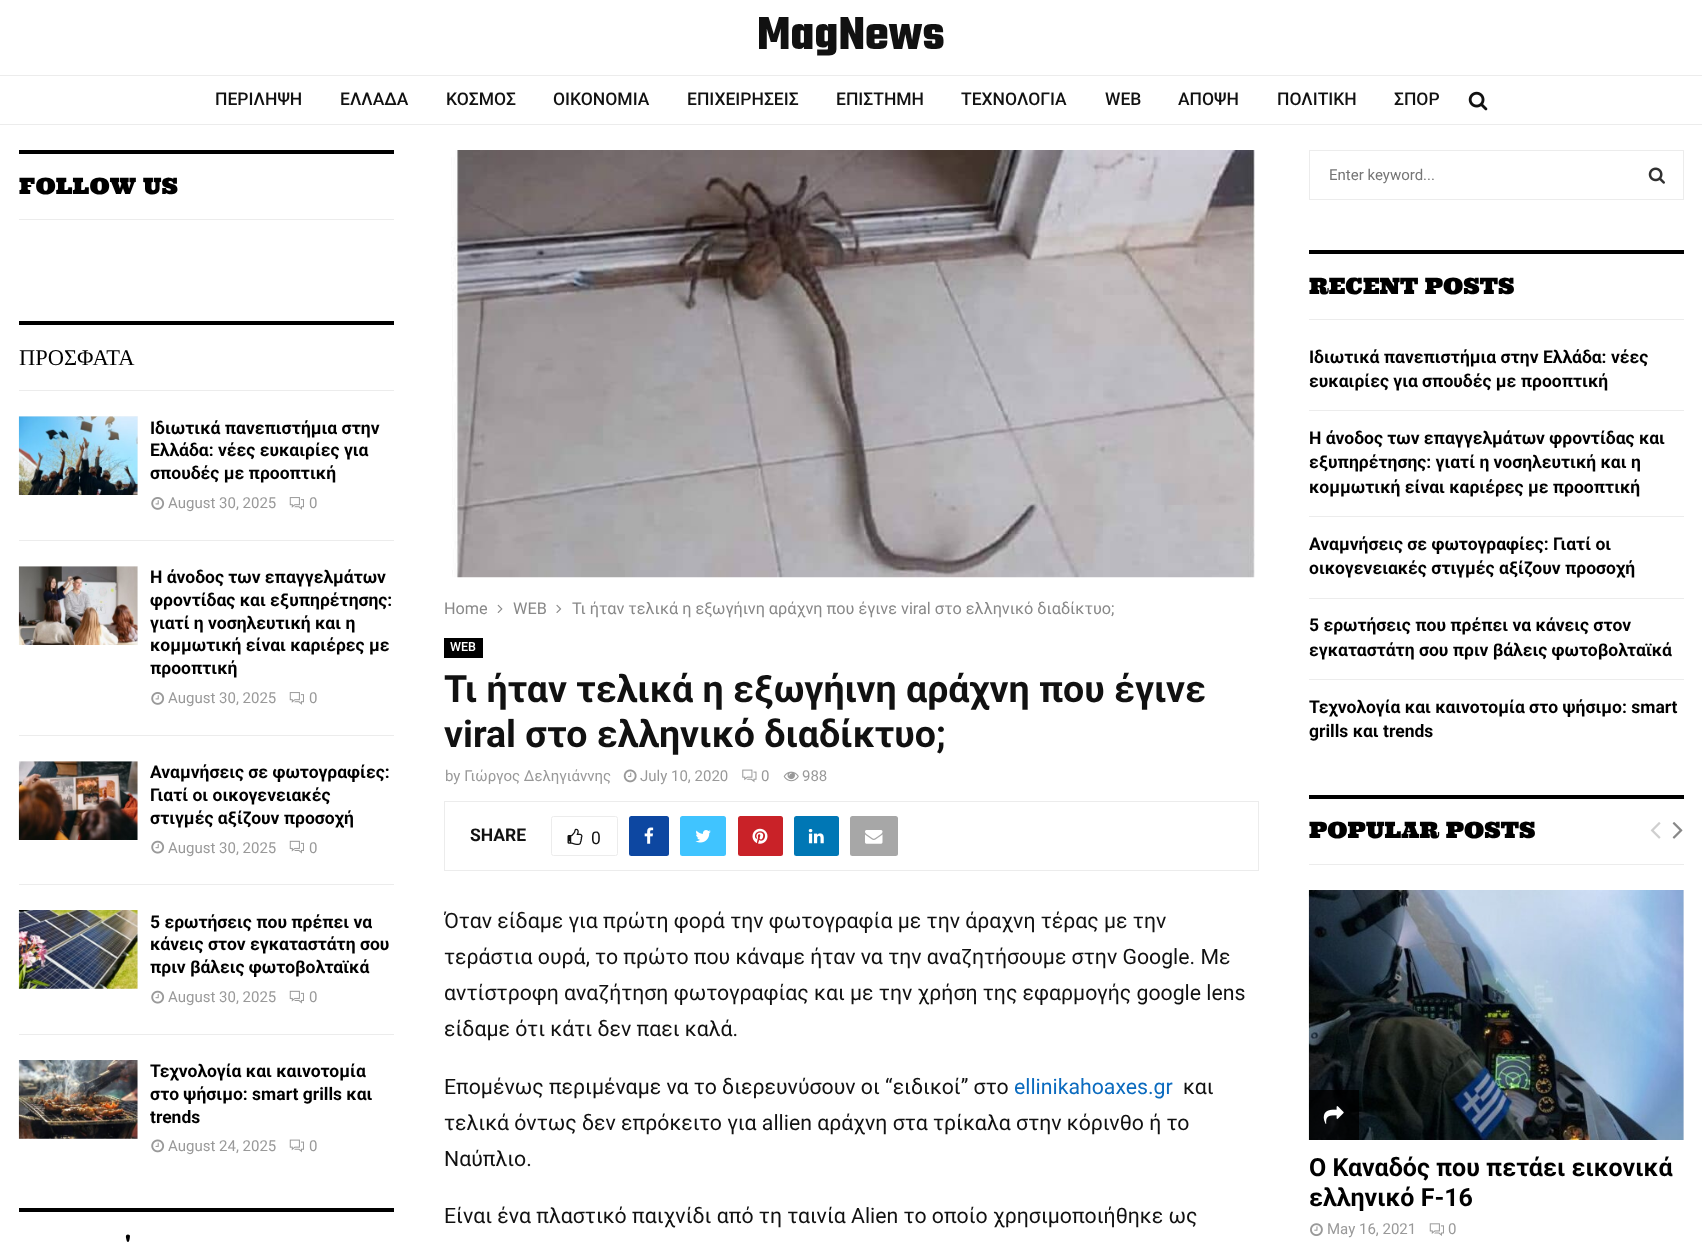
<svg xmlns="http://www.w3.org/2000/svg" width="1702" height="1242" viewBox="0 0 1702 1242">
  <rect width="100%" height="100%" fill="rgb(255,255,255)"/>
  <text x="757" y="49" font-family="Teko" font-size="50" font-weight="bold" fill="rgb(17,17,17)">MagNews</text>
  <rect x="0" y="124" width="1702" height="1" fill="rgb(236,236,236)"/>
  <rect x="0" y="75" width="1702" height="1" fill="rgb(236,236,236)"/>
  <g font-family="Roboto" font-size="17.5" font-weight="500" fill="rgb(17,17,17)">
    <text x="215" y="105">ΠΕΡΙΛΗΨΗ</text>
    <text x="340" y="105">ΕΛΛΑΔΑ</text>
    <text x="446" y="105">ΚΟΣΜΟΣ</text>
    <text x="553" y="105">ΟΙΚΟΝΟΜΙΑ</text>
    <text x="687" y="105">ΕΠΙΧΕΙΡΗΣΕΙΣ</text>
    <text x="836" y="105">ΕΠΙΣΤΗΜΗ</text>
    <text x="961" y="105">ΤΕΧΝΟΛΟΓΙΑ</text>
    <text x="1105" y="105">WEB</text>
    <text x="1178" y="105">ΑΠΟΨΗ</text>
    <text x="1277" y="105">ΠΟΛΙΤΙΚΗ</text>
    <text x="1394" y="105">ΣΠΟΡ</text>
  </g>
  <image x="1468" y="91" width="20" height="20" href="pic1.png"/>
  <rect x="19" y="219" width="375" height="1" fill="rgb(236,236,236)"/>
  <rect x="19" y="150" width="375" height="4" fill="rgb(0,0,0)"/>
  <text x="19" y="194" font-family="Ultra" font-size="22.5" fill="rgb(0,0,0)">FOLLOW US</text>
  <rect x="19" y="390" width="375" height="1" fill="rgb(236,236,236)"/>
  <rect x="19" y="321" width="375" height="4" fill="rgb(0,0,0)"/>
  <text x="19" y="365" font-family="Liberation Serif" font-size="22.5" fill="rgb(0,0,0)">ΠΡΟΣΦΑΤΑ</text>
  <rect x="19" y="540" width="375" height="1" fill="rgb(236,236,236)"/>
  <rect x="19" y="416" width="119" height="79" fill="rgb(245,245,245)"/>
  <image x="18" y="416" width="120" height="79" href="pic2.png"/>
  <g font-family="Roboto" font-size="17.5" font-weight="bold" fill="rgb(0,0,0)">
    <text>
      <tspan x="150" y="434">Ιδιωτικά πανεπιστήμια στην</tspan>
      <tspan x="150" y="456">Ελλάδα: νέες ευκαιρίες για</tspan>
      <tspan x="150" y="479">σπουδές με προοπτική</tspan>
    </text>
  </g>
  <image x="151" y="497" width="14" height="13" href="pic3.png"/>
  <text x="168" y="508" font-family="Roboto" font-size="15" fill="rgb(153,153,153)">August 30, 2025</text>
  <image x="289" y="497" width="15" height="13" href="pic4.png"/>
  <text x="309" y="508" font-family="Roboto" font-size="15" fill="rgb(153,153,153)">0</text>
  <rect x="19" y="735" width="375" height="1" fill="rgb(236,236,236)"/>
  <rect x="19" y="566" width="119" height="79" fill="rgb(245,245,245)"/>
  <image x="18" y="566" width="120" height="79" href="pic5.png"/>
  <g font-family="Roboto" font-size="17.5" font-weight="bold" fill="rgb(0,0,0)">
    <text>
      <tspan x="150" y="583">Η άνοδος των επαγγελμάτων</tspan>
      <tspan x="150" y="606">φροντίδας και εξυπηρέτησης:</tspan>
      <tspan x="150" y="629">γιατί η νοσηλευτική και η</tspan>
      <tspan x="150" y="651">κομμωτική είναι καριέρες με</tspan>
      <tspan x="150" y="674">προοπτική</tspan>
    </text>
  </g>
  <image x="151" y="692" width="14" height="13" href="pic3.png"/>
  <text x="168" y="703" font-family="Roboto" font-size="15" fill="rgb(153,153,153)">August 30, 2025</text>
  <image x="289" y="692" width="15" height="13" href="pic4.png"/>
  <text x="309" y="703" font-family="Roboto" font-size="15" fill="rgb(153,153,153)">0</text>
  <rect x="19" y="884" width="375" height="1" fill="rgb(236,236,236)"/>
  <rect x="19" y="761" width="119" height="79" fill="rgb(245,245,245)"/>
  <image x="18" y="761" width="120" height="79" href="pic6.png"/>
  <g font-family="Roboto" font-size="17.5" font-weight="bold" fill="rgb(0,0,0)">
    <text>
      <tspan x="150" y="778">Αναμνήσεις σε φωτογραφίες:</tspan>
      <tspan x="150" y="801">Γιατί οι οικογενειακές</tspan>
      <tspan x="150" y="824">στιγμές αξίζουν προσοχή</tspan>
    </text>
  </g>
  <image x="151" y="840" width="14" height="14" href="pic7.png"/>
  <text x="168" y="853" font-family="Roboto" font-size="15" fill="rgb(153,153,153)">August 30, 2025</text>
  <image x="289" y="840" width="15" height="14" href="pic8.png"/>
  <text x="309" y="853" font-family="Roboto" font-size="15" fill="rgb(153,153,153)">0</text>
  <rect x="19" y="1034" width="375" height="1" fill="rgb(236,236,236)"/>
  <rect x="19" y="910" width="119" height="79" fill="rgb(245,245,245)"/>
  <image x="18" y="910" width="120" height="79" href="pic9.png"/>
  <g font-family="Roboto" font-size="17.5" font-weight="bold" fill="rgb(0,0,0)">
    <text>
      <tspan x="150" y="928">5 ερωτήσεις που πρέπει να</tspan>
      <tspan x="150" y="950">κάνεις στον εγκαταστάτη σου</tspan>
      <tspan x="150" y="973">πριν βάλεις φωτοβολταϊκά</tspan>
    </text>
  </g>
  <image x="151" y="990" width="14" height="14" href="pic7.png"/>
  <text x="168" y="1002" font-family="Roboto" font-size="15" fill="rgb(153,153,153)">August 30, 2025</text>
  <image x="289" y="990" width="15" height="14" href="pic8.png"/>
  <text x="309" y="1002" font-family="Roboto" font-size="15" fill="rgb(153,153,153)">0</text>
  <rect x="19" y="1060" width="119" height="79" fill="rgb(245,245,245)"/>
  <image x="18" y="1060" width="120" height="79" href="pic10.png"/>
  <g font-family="Roboto" font-size="17.5" font-weight="bold" fill="rgb(0,0,0)">
    <text>
      <tspan x="150" y="1077">Τεχνολογία και καινοτομία</tspan>
      <tspan x="150" y="1100">στο ψήσιμο: smart grills και</tspan>
      <tspan x="150" y="1123">trends</tspan>
    </text>
  </g>
  <image x="151" y="1139" width="14" height="14" href="pic11.png"/>
  <text x="168" y="1151" font-family="Roboto" font-size="15" fill="rgb(153,153,153)">August 24, 2025</text>
  <image x="289" y="1139" width="15" height="14" href="pic12.png"/>
  <text x="309" y="1151" font-family="Roboto" font-size="15" fill="rgb(153,153,153)">0</text>
  <rect x="19" y="1208" width="375" height="4" fill="rgb(0,0,0)"/>
  <text x="125" y="1251" font-family="Ultra" font-size="22.5" fill="rgb(0,0,0)">'</text>
  <image x="451" y="150" width="804" height="428" href="pic13.png"/>
  <text x="444" y="614" font-family="Roboto" font-size="16.25" fill="rgb(136,136,136)">Home</text>
  <image x="497" y="604" width="6" height="9" href="pic14.png"/>
  <text x="513" y="614" font-family="Roboto" font-size="16.25" fill="rgb(136,136,136)">WEB</text>
  <image x="556" y="604" width="6" height="9" href="pic15.png"/>
  <text x="572" y="614" font-family="Roboto" font-size="16.25" fill="rgb(136,136,136)">Τι ήταν τελικά η εξωγήινη αράχνη που έγινε viral στο ελληνικό διαδίκτυο;</text>
  <rect x="444" y="638" width="39" height="20" fill="rgb(0,0,0)"/>
  <text x="450" y="651" font-family="Roboto" font-size="12.5" font-weight="500" fill="rgb(255,255,255)">WEB</text>
  <g font-family="Roboto" font-size="37.5" font-weight="bold" fill="rgb(17,17,17)">
    <text>
      <tspan x="444" y="702">Τι ήταν τελικά η εξωγήινη αράχνη που έγινε</tspan>
      <tspan x="444" y="747">viral στο ελληνικό διαδίκτυο;</tspan>
    </text>
  </g>
  <text x="445" y="781" font-family="Roboto" font-size="15" fill="rgb(153,153,153)">by Γιώργος Δεληγιάννης</text>
  <image x="623" y="769" width="14" height="14" href="pic16.png"/>
  <text x="640" y="781" font-family="Roboto" font-size="15" fill="rgb(153,153,153)">July 10, 2020</text>
  <image x="742" y="769" width="15" height="14" href="pic17.png"/>
  <text x="761" y="781" font-family="Roboto" font-size="15" fill="rgb(153,153,153)">0</text>
  <image x="783" y="771" width="16" height="11" href="pic18.png"/>
  <text x="802" y="781" font-family="Roboto" font-size="15" fill="rgb(153,153,153)">988</text>
  <rect x="444.5" y="801.5" width="814" height="69" fill="none" stroke="rgb(236,236,236)"/>
  <text x="470" y="841" font-family="Roboto" font-size="17.5" font-weight="bold" fill="rgb(17,17,17)">SHARE</text>
  <rect x="551.5" y="816.5" width="66" height="39" rx="2" fill="none" stroke="rgb(236,236,236)"/>
  <image x="567" y="828" width="16" height="17" href="pic19.png"/>
  <text x="591" y="844" font-family="Roboto" font-size="17.5" fill="rgb(17,17,17)">0</text>
  <rect x="629" y="816" width="40" height="40" rx="2.5" fill="rgb(13,71,161)"/>
  <image x="644" y="827" width="10" height="17" href="pic20.png"/>
  <rect x="680" y="816" width="46" height="40" rx="2.5" fill="rgb(64,196,255)"/>
  <image x="695" y="830" width="16" height="13" href="pic21.png"/>
  <rect x="738" y="816" width="45" height="40" rx="2.5" fill="rgb(201,34,40)"/>
  <image x="752" y="828" width="16" height="16" href="pic22.png"/>
  <rect x="794" y="816" width="45" height="40" rx="2.5" fill="rgb(0,119,181)"/>
  <image x="808" y="829" width="16" height="15" href="pic23.png"/>
  <rect x="850" y="816" width="48" height="40" rx="2.5" fill="rgb(167,167,167)"/>
  <image x="865" y="830" width="18" height="14" href="pic24.png"/>
  <g font-family="Roboto" font-size="21.25" fill="rgb(17,17,17)">
    <text>
      <tspan x="444" y="928">Όταν είδαμε για πρώτη φορά την φωτογραφία με την άραχνη τέρας με την</tspan>
      <tspan x="444" y="964">τεράστια ουρά, το πρώτο που κάναμε ήταν να την αναζητήσουμε στην Google. Με</tspan>
      <tspan x="444" y="1000">αντίστροφη αναζήτηση φωτογραφίας και με την χρήση της εφαρμογής google lens</tspan>
      <tspan x="444" y="1036">είδαμε ότι κάτι δεν παει καλά.</tspan>
    </text>
    <text x="444" y="1094">Επομένως περιμέναμε να το διερευνύσουν οι “ειδικοί” στο</text>
  </g>
  <text x="1014" y="1094" font-family="Roboto" font-size="21.25" fill="rgb(11,107,191)">ellinikahoaxes.gr</text>
  <g font-family="Roboto" font-size="21.25" fill="rgb(17,17,17)">
    <text x="1183" y="1094">και</text>
    <text>
      <tspan x="444" y="1130">τελικά όντως δεν επρόκειτο για allien αράχνη στα τρίκαλα στην κόρινθο ή το</tspan>
      <tspan x="444" y="1166">Ναύπλιο.</tspan>
    </text>
    <text x="444" y="1223">Είναι ένα πλαστικό παιχνίδι από τη ταινία Alien το οποίο χρησιμοποιήθηκε ως</text>
  </g>
  <rect x="1309.5" y="150.5" width="374" height="49" fill="none" stroke="rgb(236,236,236)"/>
  <text x="1329" y="180" font-family="Roboto" font-size="15" fill="rgb(117,117,117)">Enter keyword...</text>
  <image x="1648" y="167" width="17" height="17" href="pic25.png"/>
  <rect x="1309" y="319" width="375" height="1" fill="rgb(236,236,236)"/>
  <rect x="1309" y="250" width="375" height="4" fill="rgb(0,0,0)"/>
  <text x="1309" y="294" font-family="Ultra" font-size="22.5" fill="rgb(0,0,0)">RECENT POSTS</text>
  <rect x="1309" y="410" width="375" height="1" fill="rgb(236,236,236)"/>
  <g font-family="Roboto" font-size="17.5" font-weight="bold" fill="rgb(0,0,0)">
    <text>
      <tspan x="1309" y="363">Ιδιωτικά πανεπιστήμια στην Ελλάδα: νέες</tspan>
      <tspan x="1309" y="387">ευκαιρίες για σπουδές με προοπτική</tspan>
    </text>
  </g>
  <rect x="1309" y="516" width="375" height="1" fill="rgb(236,236,236)"/>
  <g font-family="Roboto" font-size="17.5" font-weight="bold" fill="rgb(0,0,0)">
    <text>
      <tspan x="1309" y="444">Η άνοδος των επαγγελμάτων φροντίδας και</tspan>
      <tspan x="1309" y="468">εξυπηρέτησης: γιατί η νοσηλευτική και η</tspan>
      <tspan x="1309" y="493">κομμωτική είναι καριέρες με προοπτική</tspan>
    </text>
  </g>
  <rect x="1309" y="598" width="375" height="1" fill="rgb(236,236,236)"/>
  <g font-family="Roboto" font-size="17.5" font-weight="bold" fill="rgb(0,0,0)">
    <text>
      <tspan x="1309" y="550">Αναμνήσεις σε φωτογραφίες: Γιατί οι</tspan>
      <tspan x="1309" y="574">οικογενειακές στιγμές αξίζουν προσοχή</tspan>
    </text>
  </g>
  <rect x="1309" y="679" width="375" height="1" fill="rgb(236,236,236)"/>
  <g font-family="Roboto" font-size="17.5" font-weight="bold" fill="rgb(0,0,0)">
    <text>
      <tspan x="1309" y="631">5 ερωτήσεις που πρέπει να κάνεις στον</tspan>
      <tspan x="1309" y="656">εγκαταστάτη σου πριν βάλεις φωτοβολταϊκά</tspan>
    </text>
    <text>
      <tspan x="1309" y="713">Τεχνολογία και καινοτομία στο ψήσιμο: smart</tspan>
      <tspan x="1309" y="737">grills και trends</tspan>
    </text>
  </g>
  <rect x="1309" y="864" width="375" height="1" fill="rgb(236,236,236)"/>
  <rect x="1309" y="795" width="375" height="4" fill="rgb(0,0,0)"/>
  <text x="1309" y="838" font-family="Ultra" font-size="22.5" fill="rgb(0,0,0)">POPULAR POSTS</text>
  <image x="1650" y="822" width="11" height="17" href="pic26.png"/>
  <image x="1672" y="822" width="11" height="17" href="pic27.png"/>
  <rect x="1683" y="890" width="1" height="250" fill="rgb(245,245,245)"/>
  <image x="1308" y="890" width="376" height="250" href="pic28.png"/>
  <rect x="1309" y="1090" width="50" height="50" fill="rgba(0,0,0,0.8)"/>
  <image x="1323" y="1106" width="21" height="18" href="pic29.png"/>
  <g font-family="Roboto" font-size="25" font-weight="bold" fill="rgb(0,0,0)">
    <text>
      <tspan x="1309" y="1176">Ο Καναδός που πετάει εικονικά</tspan>
      <tspan x="1309" y="1206">ελληνικό F-16</tspan>
    </text>
  </g>
  <image x="1310" y="1223" width="13" height="13" href="pic30.png"/>
  <text x="1327" y="1234" font-family="Roboto" font-size="15" fill="rgb(153,153,153)">May 16, 2021</text>
  <image x="1429" y="1223" width="15" height="13" href="pic31.png"/>
  <text x="1448" y="1234" font-family="Roboto" font-size="15" fill="rgb(153,153,153)">0</text>
</svg>
